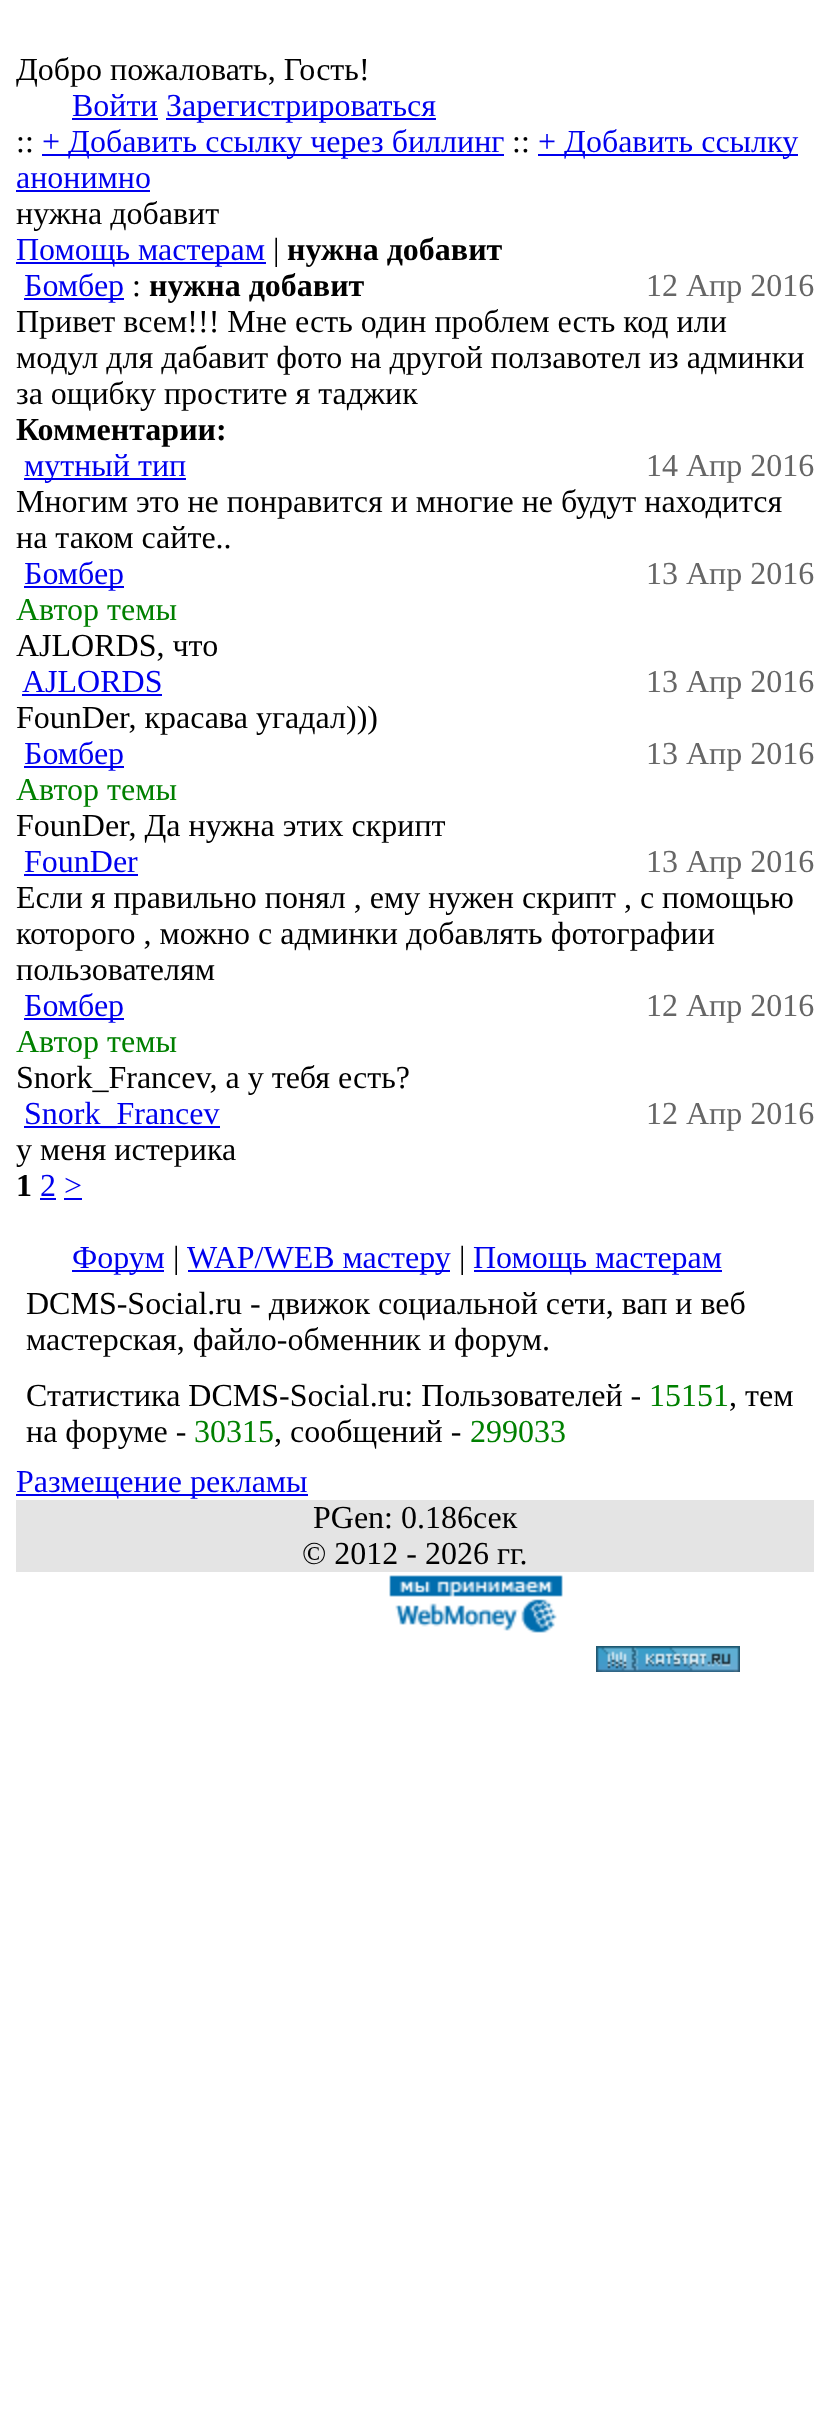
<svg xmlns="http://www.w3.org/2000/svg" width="830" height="2422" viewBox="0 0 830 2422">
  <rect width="100%" height="100%" fill="rgb(255,255,255)"/>
  <text x="16" y="80" font-family="Liberation Serif" font-size="32" fill="rgb(0,0,0)">Добро пожаловать, Гость!</text>
  <text x="72" y="116" font-family="Liberation Serif" font-size="32" fill="rgb(0,0,238)">Войти</text>
  <rect x="72" y="118" width="86" height="2" fill="rgb(0,0,238)"/>
  <rect x="166" y="118" width="270" height="2" fill="rgb(0,0,238)"/>
  <text x="166" y="116" font-family="Liberation Serif" font-size="32" fill="rgb(0,0,238)">Зарегистрироваться</text>
  <text x="16" y="152" font-family="Liberation Serif" font-size="32" fill="rgb(0,0,0)">::</text>
  <rect x="42" y="154" width="462" height="2" fill="rgb(0,0,238)"/>
  <text x="42" y="152" font-family="Liberation Serif" font-size="32" fill="rgb(0,0,238)">+ Добавить ссылку через биллинг</text>
  <text x="512" y="152" font-family="Liberation Serif" font-size="32" fill="rgb(0,0,0)">::</text>
  <rect x="538" y="154" width="260" height="2" fill="rgb(0,0,238)"/>
  <g font-family="Liberation Serif" font-size="32" fill="rgb(0,0,238)">
    <text x="538" y="152">+ Добавить ссылку</text>
    <text x="16" y="188">анонимно</text>
  </g>
  <rect x="16" y="190" width="134" height="2" fill="rgb(0,0,238)"/>
  <text x="16" y="224" font-family="Liberation Serif" font-size="32" fill="rgb(0,0,0)">нужна добавит</text>
  <rect x="16" y="262" width="250" height="2" fill="rgb(0,0,238)"/>
  <text x="16" y="260" font-family="Liberation Serif" font-size="32" fill="rgb(0,0,238)">Помощь мастерам</text>
  <text x="273" y="260" font-family="Liberation Serif" font-size="32" fill="rgb(0,0,0)">|</text>
  <text x="287" y="260" font-family="Liberation Serif" font-size="32" font-weight="bold" fill="rgb(0,0,0)">нужна добавит</text>
  <rect x="24" y="298" width="100" height="2" fill="rgb(0,0,238)"/>
  <text x="24" y="296" font-family="Liberation Serif" font-size="32" fill="rgb(0,0,238)">Бомбер</text>
  <text x="132" y="296" font-family="Liberation Serif" font-size="32" fill="rgb(0,0,0)">:</text>
  <text x="149" y="296" font-family="Liberation Serif" font-size="32" font-weight="bold" fill="rgb(0,0,0)">нужна добавит</text>
  <text x="646" y="296" font-family="Liberation Serif" font-size="32" fill="rgb(102,102,102)">12 Апр 2016</text>
  <g font-family="Liberation Serif" font-size="32" fill="rgb(0,0,0)">
    <text>
      <tspan x="16" y="332">Привет всем!!! Мне есть один проблем есть код или</tspan>
      <tspan x="16" y="368">модул для дабавит фото на другой ползавотел из админки</tspan>
      <tspan x="16" y="404">за ощибку простите я таджик</tspan>
    </text>
  </g>
  <text x="16" y="440" font-family="Liberation Serif" font-size="32" font-weight="bold" fill="rgb(0,0,0)">Комментарии:</text>
  <rect x="24" y="478" width="162" height="2" fill="rgb(0,0,238)"/>
  <text x="24" y="476" font-family="Liberation Serif" font-size="32" fill="rgb(0,0,238)">мутный тип</text>
  <text x="646" y="476" font-family="Liberation Serif" font-size="32" fill="rgb(102,102,102)">14 Апр 2016</text>
  <g font-family="Liberation Serif" font-size="32" fill="rgb(0,0,0)">
    <text>
      <tspan x="16" y="512">Многим это не понравится и многие не будут находится</tspan>
      <tspan x="16" y="548">на таком сайте..</tspan>
    </text>
  </g>
  <rect x="24" y="586" width="100" height="2" fill="rgb(0,0,238)"/>
  <text x="24" y="584" font-family="Liberation Serif" font-size="32" fill="rgb(0,0,238)">Бомбер</text>
  <text x="646" y="584" font-family="Liberation Serif" font-size="32" fill="rgb(102,102,102)">13 Апр 2016</text>
  <text x="16" y="620" font-family="Liberation Serif" font-size="32" fill="rgb(0,128,0)">Автор темы</text>
  <text x="16" y="656" font-family="Liberation Serif" font-size="32" fill="rgb(0,0,0)">AJLORDS, что</text>
  <text x="22" y="692" font-family="Liberation Serif" font-size="32" fill="rgb(0,0,238)">AJLORDS</text>
  <rect x="22" y="694" width="140" height="2" fill="rgb(0,0,238)"/>
  <text x="646" y="692" font-family="Liberation Serif" font-size="32" fill="rgb(102,102,102)">13 Апр 2016</text>
  <text x="16" y="728" font-family="Liberation Serif" font-size="32" fill="rgb(0,0,0)">FounDer, красава угадал)))</text>
  <rect x="24" y="766" width="100" height="2" fill="rgb(0,0,238)"/>
  <text x="24" y="764" font-family="Liberation Serif" font-size="32" fill="rgb(0,0,238)">Бомбер</text>
  <text x="646" y="764" font-family="Liberation Serif" font-size="32" fill="rgb(102,102,102)">13 Апр 2016</text>
  <text x="16" y="800" font-family="Liberation Serif" font-size="32" fill="rgb(0,128,0)">Автор темы</text>
  <text x="16" y="836" font-family="Liberation Serif" font-size="32" fill="rgb(0,0,0)">FounDer, Да нужна этих скрипт</text>
  <text x="24" y="872" font-family="Liberation Serif" font-size="32" fill="rgb(0,0,238)">FounDer</text>
  <rect x="24" y="874" width="114" height="2" fill="rgb(0,0,238)"/>
  <text x="646" y="872" font-family="Liberation Serif" font-size="32" fill="rgb(102,102,102)">13 Апр 2016</text>
  <g font-family="Liberation Serif" font-size="32" fill="rgb(0,0,0)">
    <text>
      <tspan x="16" y="908">Если я правильно понял , ему нужен скрипт , с помощью</tspan>
      <tspan x="16" y="944">которого , можно с админки добавлять фотографии</tspan>
      <tspan x="16" y="980">пользователям</tspan>
    </text>
  </g>
  <rect x="24" y="1018" width="100" height="2" fill="rgb(0,0,238)"/>
  <text x="24" y="1016" font-family="Liberation Serif" font-size="32" fill="rgb(0,0,238)">Бомбер</text>
  <text x="646" y="1016" font-family="Liberation Serif" font-size="32" fill="rgb(102,102,102)">12 Апр 2016</text>
  <text x="16" y="1052" font-family="Liberation Serif" font-size="32" fill="rgb(0,128,0)">Автор темы</text>
  <text x="16" y="1088" font-family="Liberation Serif" font-size="32" fill="rgb(0,0,0)">Snork_Francev, а у тебя есть?</text>
  <rect x="24" y="1126" width="196" height="2" fill="rgb(0,0,238)"/>
  <text x="24" y="1124" font-family="Liberation Serif" font-size="32" fill="rgb(0,0,238)">Snork_Francev</text>
  <text x="646" y="1124" font-family="Liberation Serif" font-size="32" fill="rgb(102,102,102)">12 Апр 2016</text>
  <text x="16" y="1160" font-family="Liberation Serif" font-size="32" fill="rgb(0,0,0)">у меня истерика</text>
  <text x="16" y="1196" font-family="Liberation Serif" font-size="32" font-weight="bold" fill="rgb(0,0,0)">1</text>
  <text x="40" y="1196" font-family="Liberation Serif" font-size="32" fill="rgb(0,0,238)">2 &gt;</text>
  <rect x="40" y="1198" width="16" height="2" fill="rgb(0,0,238)"/>
  <rect x="64" y="1198" width="18" height="2" fill="rgb(0,0,238)"/>
  <rect x="72" y="1270" width="92" height="2" fill="rgb(0,0,238)"/>
  <text x="72" y="1268" font-family="Liberation Serif" font-size="32" fill="rgb(0,0,238)">Форум</text>
  <text x="173" y="1268" font-family="Liberation Serif" font-size="32" fill="rgb(0,0,0)">|</text>
  <rect x="188" y="1270" width="262" height="2" fill="rgb(0,0,238)"/>
  <text x="187" y="1268" font-family="Liberation Serif" font-size="32" fill="rgb(0,0,238)">WAP/WEB мастеру</text>
  <text x="459" y="1268" font-family="Liberation Serif" font-size="32" fill="rgb(0,0,0)">|</text>
  <rect x="474" y="1270" width="248" height="2" fill="rgb(0,0,238)"/>
  <text x="473" y="1268" font-family="Liberation Serif" font-size="32" fill="rgb(0,0,238)">Помощь мастерам</text>
  <g font-family="Liberation Serif" font-size="32" fill="rgb(0,0,0)">
    <text>
      <tspan x="26" y="1314">DCMS-Social.ru - движок социальной сети, вап и веб</tspan>
      <tspan x="26" y="1350">мастерская, файло-обменник и форум.</tspan>
      <tspan x="26" y="1406">Статистика DCMS-Social.ru: Пользователей -</tspan>
    </text>
  </g>
  <text x="649" y="1406" font-family="Liberation Serif" font-size="32" fill="rgb(0,128,0)">15151</text>
  <g font-family="Liberation Serif" font-size="32" fill="rgb(0,0,0)">
    <text x="729" y="1406">, тем</text>
    <text x="26" y="1442">на форуме -</text>
  </g>
  <text x="194" y="1442" font-family="Liberation Serif" font-size="32" fill="rgb(0,128,0)">30315</text>
  <text x="274" y="1442" font-family="Liberation Serif" font-size="32" fill="rgb(0,0,0)">, сообщений -</text>
  <text x="470" y="1442" font-family="Liberation Serif" font-size="32" fill="rgb(0,128,0)">299033</text>
  <rect x="16" y="1494" width="292" height="2" fill="rgb(0,0,238)"/>
  <text x="16" y="1492" font-family="Liberation Serif" font-size="32" fill="rgb(0,0,238)">Размещение рекламы</text>
  <rect x="16" y="1500" width="798" height="72" fill="rgb(228,228,228)"/>
  <g font-family="Liberation Serif" font-size="32" fill="rgb(0,0,0)">
    <text x="313" y="1528">PGen: 0.186сек</text>
    <text x="302" y="1564">© 2012 - 2026 гг.</text>
  </g>
  <image x="389" y="1575" width="174" height="58" href="pic1.png"/>
  <image x="596" y="1646" width="144" height="26" href="pic2.png"/>
</svg>
